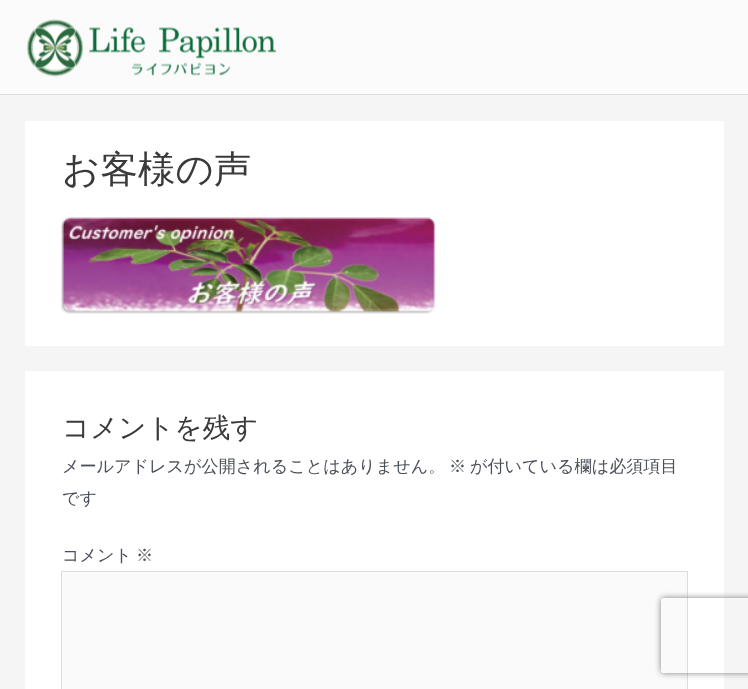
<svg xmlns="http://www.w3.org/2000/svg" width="748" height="689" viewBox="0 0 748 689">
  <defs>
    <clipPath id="clip1"><path d="M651 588H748V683H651ZM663.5 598H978.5C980 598 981 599 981 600.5V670.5C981 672 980 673 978.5 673H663.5C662 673 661 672 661 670.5V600.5C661 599 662 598 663.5 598Z" clip-rule="evenodd"/></clipPath>
  </defs>
  <rect width="100%" height="100%" fill="rgb(245,245,245)"/>
  <rect x="0" y="0" width="748" height="94" fill="rgb(251,251,251)"/>
  <rect x="0" y="94" width="748" height="1" fill="rgb(221,221,221)"/>
  <image x="27" y="19" width="250" height="58" href="pic1.png"/>
  <rect x="25" y="121" width="699" height="225" fill="rgb(255,255,255)"/>
  <text x="62" y="182" font-family="WenQuanYi Zen Hei" font-size="37.5" font-weight="500" fill="rgb(58,58,58)">お客様の声</text>
  <image x="61" y="217" width="375" height="97" href="pic2.png"/>
  <rect x="25" y="371" width="699" height="318" fill="rgb(255,255,255)"/>
  <text x="62" y="437" font-family="WenQuanYi Zen Hei" font-size="27.5" font-weight="500" fill="rgb(58,58,58)">コメントを残す</text>
  <g font-family="WenQuanYi Zen Hei" font-size="17.1" font-weight="500" fill="rgb(75,79,88)">
    <text x="62" y="472">メールアドレスが公開されることはありません。</text>
    <text x="449" y="472">※</text>
    <text x="470" y="472">が付いている欄は必須項目</text>
    <text x="62" y="504">です</text>
    <text x="62" y="561">コメント</text>
    <text x="136" y="561">※</text>
  </g>
  <rect x="61.5" y="571.5" width="626" height="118" fill="rgb(250,250,250)" stroke="rgb(221,221,221)"/>
  <g clip-path="url(#clip1)">
    <rect x="661" y="598" width="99" height="75" rx="2.5" fill="rgb(128,128,128)" filter="blur(3px)"/>
  </g>
</svg>
